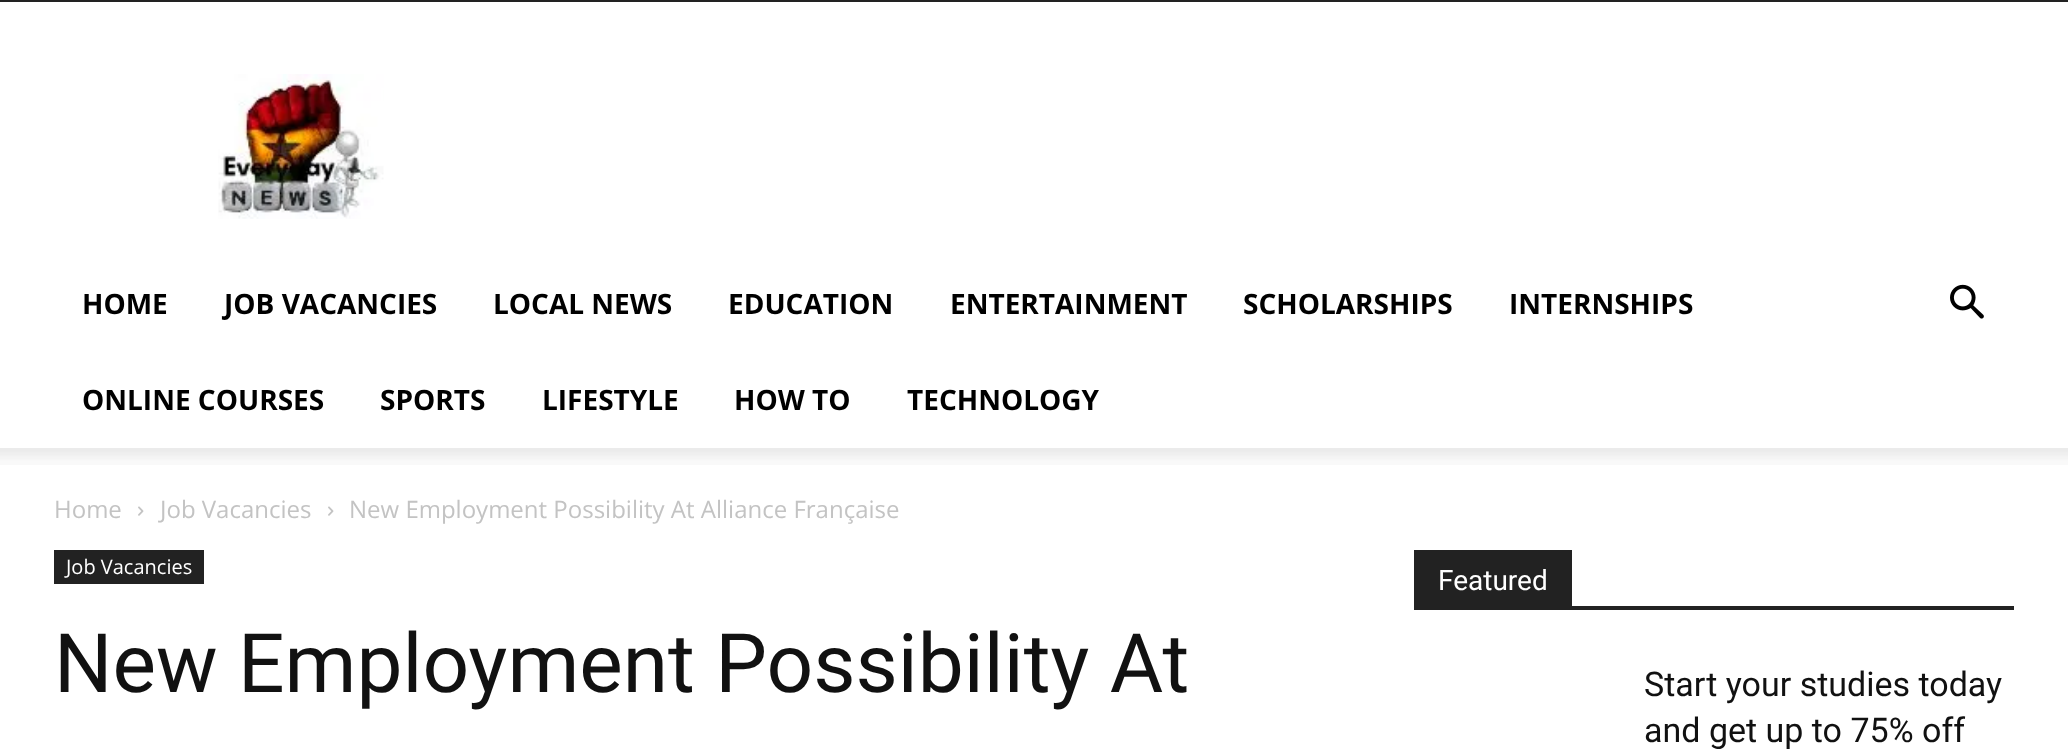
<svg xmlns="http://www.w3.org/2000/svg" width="2068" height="756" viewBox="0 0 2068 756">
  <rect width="100%" height="100%" fill="rgb(255,255,255)"/>
  <rect x="0" y="0" width="2068" height="2" fill="rgb(34,34,34)"/>
  <image x="218" y="74" width="166" height="145" href="pic1.png"/>
  <g font-family="Open Sans" font-size="28" font-weight="bold" fill="rgb(0,0,0)">
    <text x="82" y="314">HOME</text>
    <text x="224" y="314">JOB VACANCIES</text>
    <text x="493" y="314">LOCAL NEWS</text>
    <text x="728" y="314">EDUCATION</text>
    <text x="950" y="314">ENTERTAINMENT</text>
    <text x="1243" y="314">SCHOLARSHIPS</text>
    <text x="1509" y="314">INTERNSHIPS</text>
    <text x="82" y="410">ONLINE COURSES</text>
    <text x="380" y="410">SPORTS</text>
    <text x="542" y="410">LIFESTYLE</text>
    <text x="734" y="410">HOW TO</text>
    <text x="907" y="410">TECHNOLOGY</text>
  </g>
  <image x="1950" y="284" width="34" height="35" href="pic2.png"/>
  <image x="0" y="448" width="2068" height="17" href="pic3.png"/>
  <text x="54" y="518" font-family="Open Sans" font-size="24" fill="rgb(195,195,195)">Home</text>
  <image x="138" y="506" width="6" height="10" href="pic4.png"/>
  <text x="160" y="518" font-family="Open Sans" font-size="24" fill="rgb(195,195,195)">Job Vacancies</text>
  <image x="328" y="506" width="6" height="10" href="pic4.png"/>
  <text x="349" y="518" font-family="Open Sans" font-size="24" fill="rgb(195,195,195)">New Employment Possibility At Alliance Française</text>
  <rect x="54" y="550" width="150" height="34" fill="rgb(34,34,34)"/>
  <text x="66" y="574" font-family="Open Sans" font-size="20" fill="rgb(255,255,255)">Job Vacancies</text>
  <text x="54" y="692" font-family="Roboto" font-size="82" fill="rgb(17,17,17)">New Employment Possibility At</text>
  <rect x="1414" y="606" width="600" height="4" fill="rgb(34,34,34)"/>
  <rect x="1414" y="550" width="158" height="56" fill="rgb(34,34,34)"/>
  <text x="1438" y="590" font-family="Roboto" font-size="28" fill="rgb(255,255,255)">Featured</text>
  <g font-family="Roboto" font-size="34" fill="rgb(17,17,17)">
    <text>
      <tspan x="1644" y="696">Start your studies today</tspan>
      <tspan x="1644" y="742">and get up to 75% off</tspan>
    </text>
  </g>
</svg>
